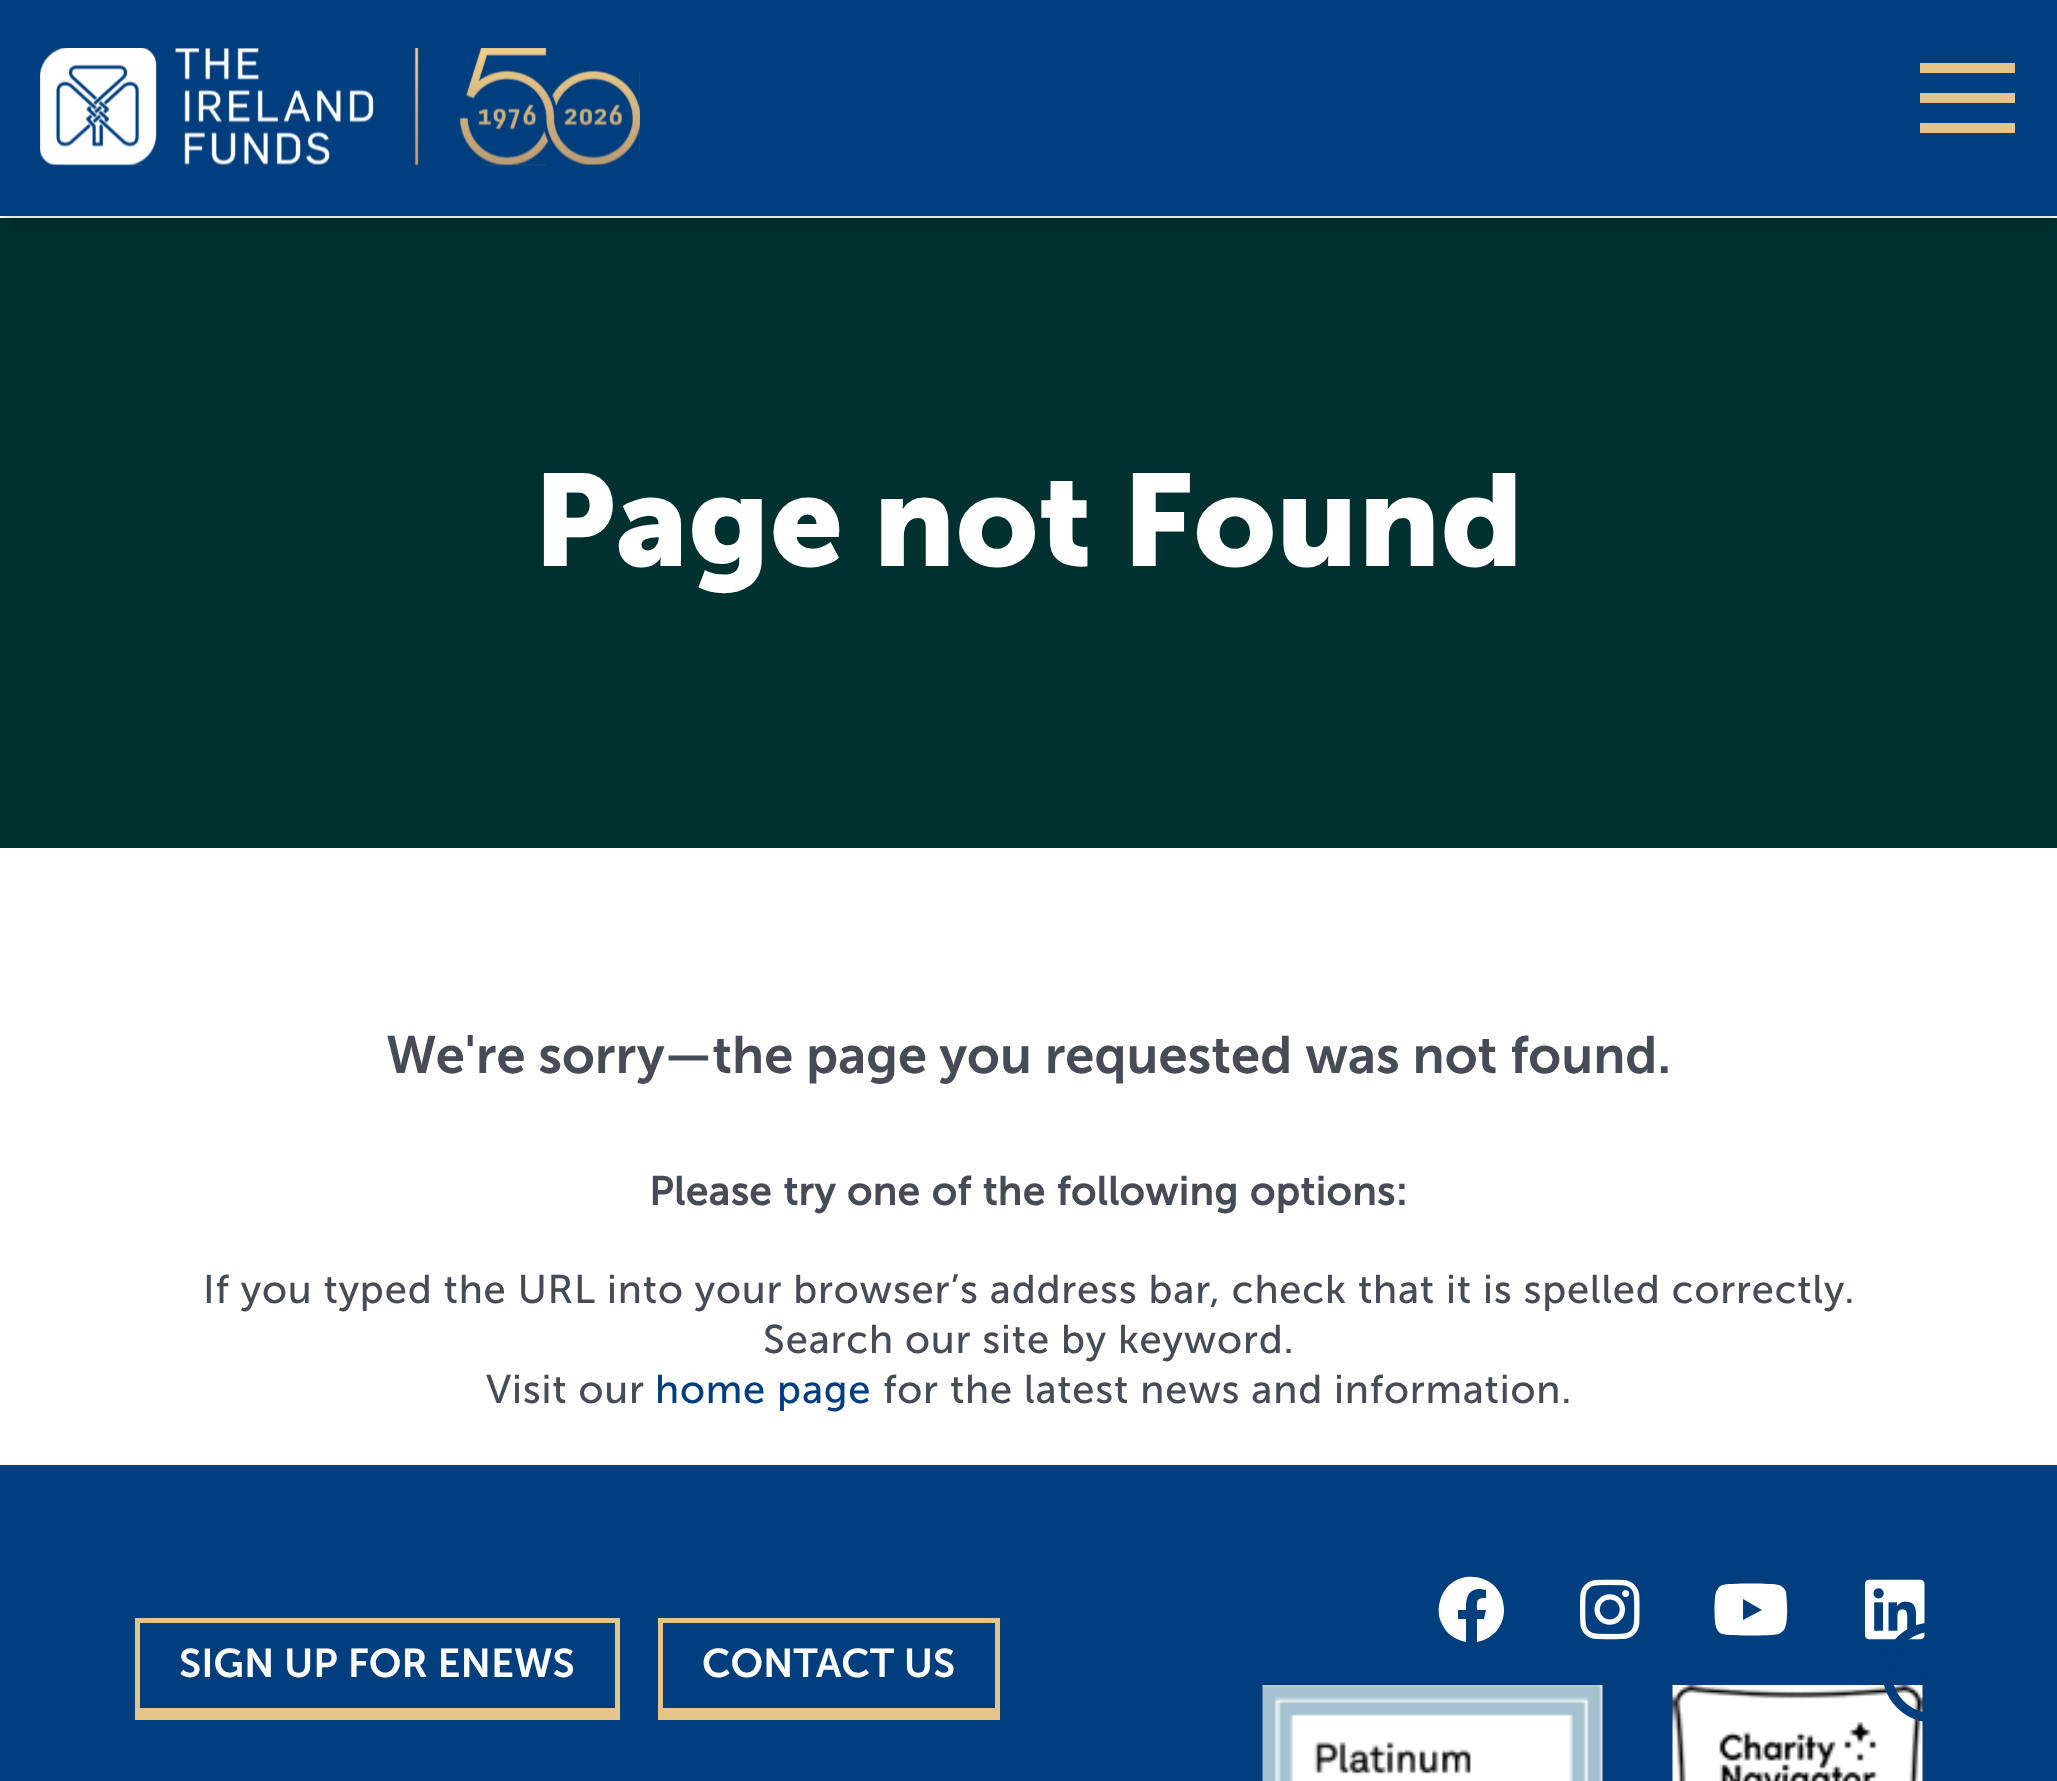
<svg xmlns="http://www.w3.org/2000/svg" width="2057" height="1781" viewBox="0 0 2057 1781">
  <rect width="100%" height="100%" fill="rgb(255,255,255)"/>
  <rect x="0" y="218" width="2057" height="630" fill="rgb(0,49,46)"/>
  <rect x="3" y="13" width="2052" height="210" fill="rgba(0,0,0,0.12)" filter="blur(6px)"/>
  <rect x="0" y="0" width="2057" height="216" fill="rgb(0,62,126)"/>
  <image x="40" y="48" width="600" height="118" href="pic1.png"/>
  <rect x="1920" y="63" width="95" height="10" fill="rgb(230,198,136)"/>
  <rect x="1920" y="93" width="95" height="10" fill="rgb(230,198,136)"/>
  <rect x="1920" y="123" width="95" height="10" fill="rgb(230,198,136)"/>
  <text x="533" y="566" font-family="'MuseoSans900'" font-size="130" fill="rgb(255,255,255)">Page not Found</text>
  <text x="386" y="1073" font-family="'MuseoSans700'" font-size="52.5" fill="rgb(71,75,85)">We're sorry—the page you requested was not found.</text>
  <text x="649" y="1205" font-family="'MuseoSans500'" font-size="40" font-weight="bold" letter-spacing="0.8" fill="rgb(71,75,85)">Please try one of the following options:</text>
  <g font-family="'MuseoSans500'" font-size="40" letter-spacing="0.8" fill="rgb(71,75,85)">
    <text x="203" y="1303">If you typed the URL into your browser’s address bar, check that it is spelled correctly.</text>
    <text x="763" y="1353">Search our site by keyword.</text>
    <text x="486" y="1403">Visit our</text>
  </g>
  <text x="655" y="1403" font-family="'MuseoSans500'" font-size="40" letter-spacing="0.8" fill="rgb(0,62,126)">home page</text>
  <text x="883" y="1403" font-family="'MuseoSans500'" font-size="40" letter-spacing="0.8" fill="rgb(71,75,85)">for the latest news and information.</text>
  <rect x="0" y="1465" width="2057" height="316" fill="rgb(0,62,126)"/>
  <rect x="135" y="1618" width="485" height="5" fill="rgb(230,198,136)"/>
  <rect x="615" y="1618" width="5" height="90" fill="rgb(230,198,136)"/>
  <rect x="140" y="1708" width="480" height="12" fill="rgb(230,198,136)"/>
  <rect x="135" y="1618" width="5" height="102" fill="rgb(230,198,136)"/>
  <text x="179" y="1677" font-family="'MuseoSans700'" font-size="40" fill="rgb(255,255,255)">SIGN UP FOR ENEWS</text>
  <rect x="658" y="1618" width="342" height="5" fill="rgb(230,198,136)"/>
  <rect x="995" y="1618" width="5" height="90" fill="rgb(230,198,136)"/>
  <rect x="663" y="1708" width="337" height="12" fill="rgb(230,198,136)"/>
  <rect x="658" y="1618" width="5" height="102" fill="rgb(230,198,136)"/>
  <text x="702" y="1677" font-family="'MuseoSans700'" font-size="40" fill="rgb(255,255,255)">CONTACT US</text>
  <path d="M1504 1610C1504 1571 1450 1564 1440 1601C1438 1608 1438 1617 1442 1624C1446 1634 1456 1640 1466 1642V1619H1458V1610H1466C1466 1599 1467 1589 1480 1589L1486 1590V1598C1476 1598 1477 1600 1477 1610H1486L1484 1619H1477V1642C1493 1639 1504 1626 1504 1610Z" fill="rgb(255,255,255)"/>
  <image x="1580" y="1579" width="60" height="61" href="pic2.png"/>
  <path d="M1786 1592C1785 1589 1782 1586 1779 1585C1772 1583 1730 1583 1722 1585L1719 1587C1718 1588 1717 1590 1716 1592C1714 1599 1714 1620 1716 1627C1717 1630 1719 1633 1722 1634C1731 1636 1771 1636 1779 1634L1783 1631C1789 1626 1787 1600 1786 1592ZM1743 1620V1599L1762 1610Z" fill="rgb(255,255,255)"/>
  <image x="1865" y="1579" width="60" height="61" href="pic3.png"/>
  <image x="1262" y="1685" width="341" height="96" href="pic4.png"/>
  <image x="1672" y="1685" width="251" height="96" href="pic5.png"/>
  <image x="1884" y="1623" width="41" height="99" href="pic6.png"/>
</svg>
